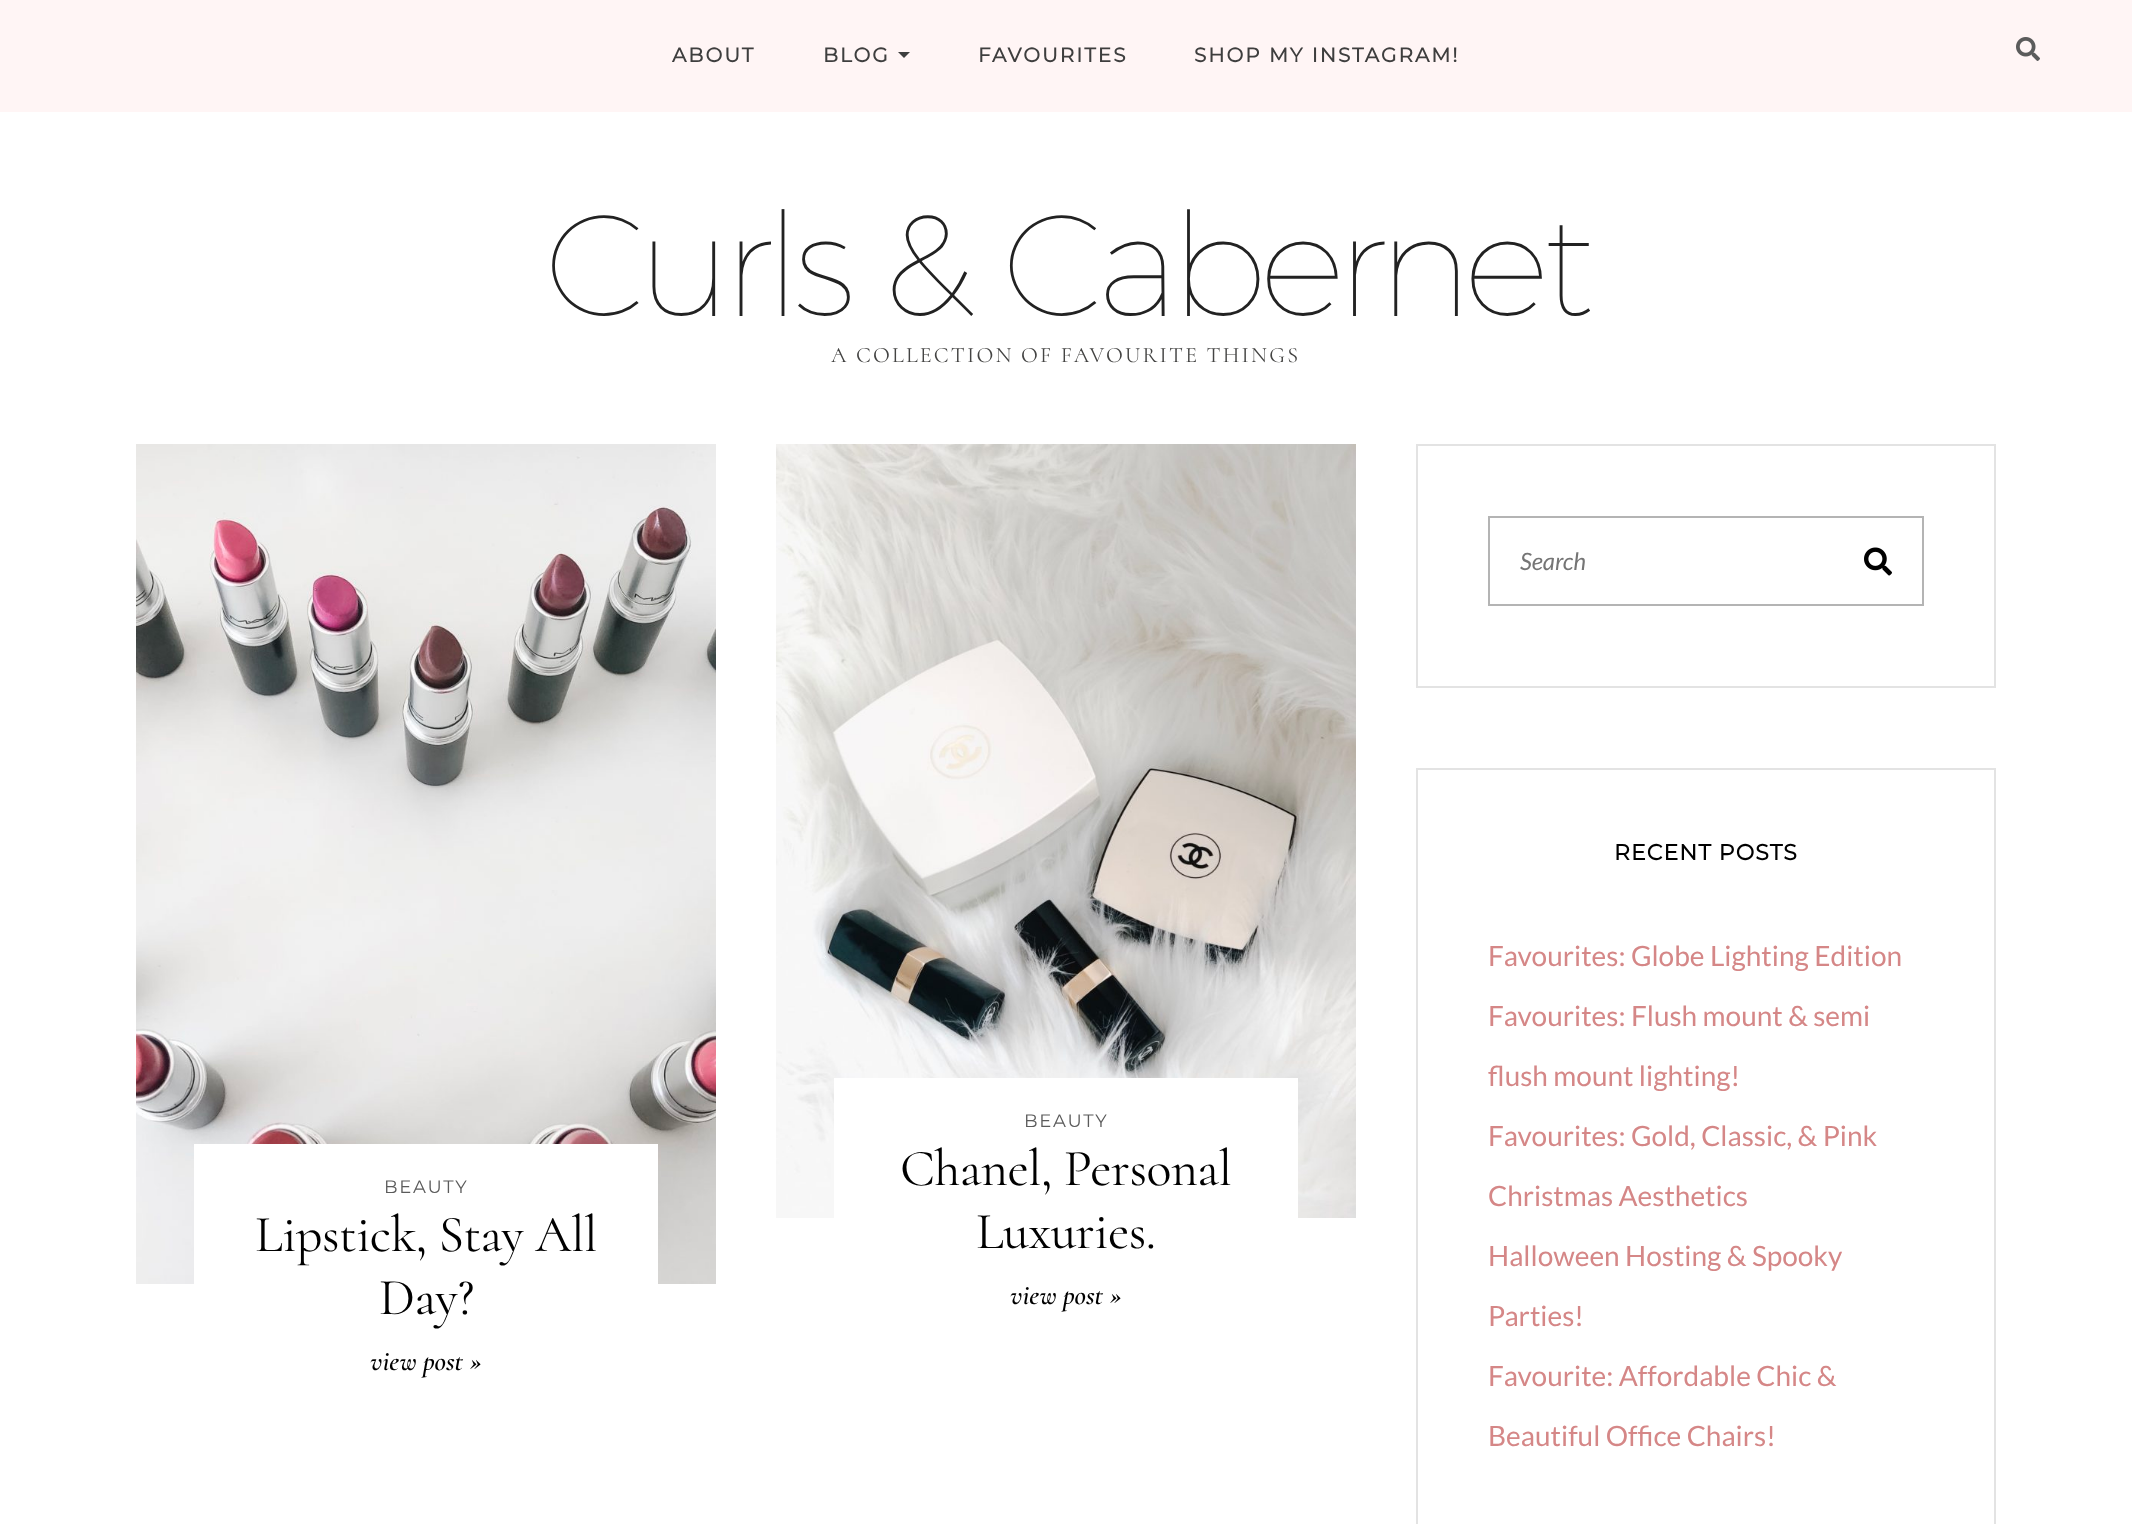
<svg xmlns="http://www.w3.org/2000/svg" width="2132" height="1524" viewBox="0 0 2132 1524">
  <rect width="100%" height="100%" fill="rgb(255,255,255)"/>
  <rect x="0" y="0" width="2132" height="112" fill="rgb(255,245,245)"/>
  <g font-family="Montserrat" font-size="20" font-weight="bold" letter-spacing="2" fill="rgb(62,62,62)">
    <text x="672" y="62">ABOUT</text>
    <text x="823" y="62">BLOG</text>
  </g>
  <path d="M898 52H910L904 58Z" fill="rgb(62,62,62)"/>
  <g font-family="Montserrat" font-size="20" font-weight="bold" letter-spacing="2" fill="rgb(62,62,62)">
    <text x="978" y="62">FAVOURITES</text>
    <text x="1194" y="62">SHOP MY INSTAGRAM!</text>
  </g>
  <image x="2016" y="37" width="24" height="24" href="pic1.png"/>
  <text x="545" y="316" font-family="Montserrat" font-size="144" font-weight="100" letter-spacing="-7.25" fill="rgb(34,34,34)">Curls &amp; Cabernet</text>
  <text x="831" y="362" font-family="Cormorant" font-size="22" letter-spacing="2.2" fill="rgb(68,68,67)">A COLLECTION OF FAVOURITE THINGS</text>
  <image x="136" y="444" width="580" height="840" href="pic2.png"/>
  <rect x="194" y="1144" width="464" height="140" fill="rgb(255,255,255)"/>
  <text x="384" y="1193" font-family="'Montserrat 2'" font-size="18" font-weight="100" letter-spacing="1.75" fill="rgb(91,91,91)">BEAUTY</text>
  <g font-family="Cormorant" font-size="52" letter-spacing="-0.5" fill="rgb(0,0,0)">
    <text x="255" y="1251">Lipstick, Stay All</text>
    <text x="379" y="1314">Day?</text>
  </g>
  <text x="370" y="1370" font-family="Cormorant" font-size="28" font-weight="600" font-style="italic" fill="rgb(0,0,0)">view post »</text>
  <image x="776" y="444" width="580" height="774" href="pic3.png"/>
  <rect x="834" y="1078" width="464" height="140" fill="rgb(255,255,255)"/>
  <text x="1024" y="1127" font-family="'Montserrat 2'" font-size="18" font-weight="100" letter-spacing="1.75" fill="rgb(91,91,91)">BEAUTY</text>
  <g font-family="Cormorant" font-size="52" letter-spacing="-0.5" fill="rgb(0,0,0)">
    <text x="900" y="1185">Chanel, Personal</text>
    <text x="976" y="1248">Luxuries.</text>
  </g>
  <text x="1010" y="1304" font-family="Cormorant" font-size="28" font-weight="600" font-style="italic" fill="rgb(0,0,0)">view post »</text>
  <rect x="1417" y="445" width="578" height="242" fill="none" stroke="rgb(227,227,227)" stroke-width="2"/>
  <rect x="1489" y="517" width="434" height="88" fill="none" stroke="rgb(180,180,180)" stroke-width="2"/>
  <text x="1520" y="570" font-family="Lato" font-size="24" font-style="italic" fill="rgb(117,117,117)">Search</text>
  <image x="1864" y="547" width="28" height="29" href="pic4.png"/>
  <rect x="1417" y="769" width="578" height="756" fill="none" stroke="rgb(227,227,227)" stroke-width="2"/>
  <text x="1614" y="860" font-family="Montserrat" font-size="22" font-weight="bold" letter-spacing="1.1" fill="rgb(0,0,0)">RECENT POSTS</text>
  <g font-family="Lato" font-size="28" fill="rgb(213,135,135)">
    <text x="1488" y="966">Favourites: Globe Lighting Edition</text>
    <text x="1488" y="1026">Favourites: Flush mount &amp; semi</text>
    <text x="1488" y="1086">flush mount lighting!</text>
    <text x="1488" y="1146">Favourites: Gold, Classic, &amp; Pink</text>
    <text x="1488" y="1206">Christmas Aesthetics</text>
    <text x="1488" y="1266">Halloween Hosting &amp; Spooky</text>
    <text x="1488" y="1326">Parties!</text>
    <text x="1488" y="1386">Favourite: Affordable Chic &amp;</text>
    <text x="1488" y="1446">Beautiful Office Chairs!</text>
  </g>
</svg>
